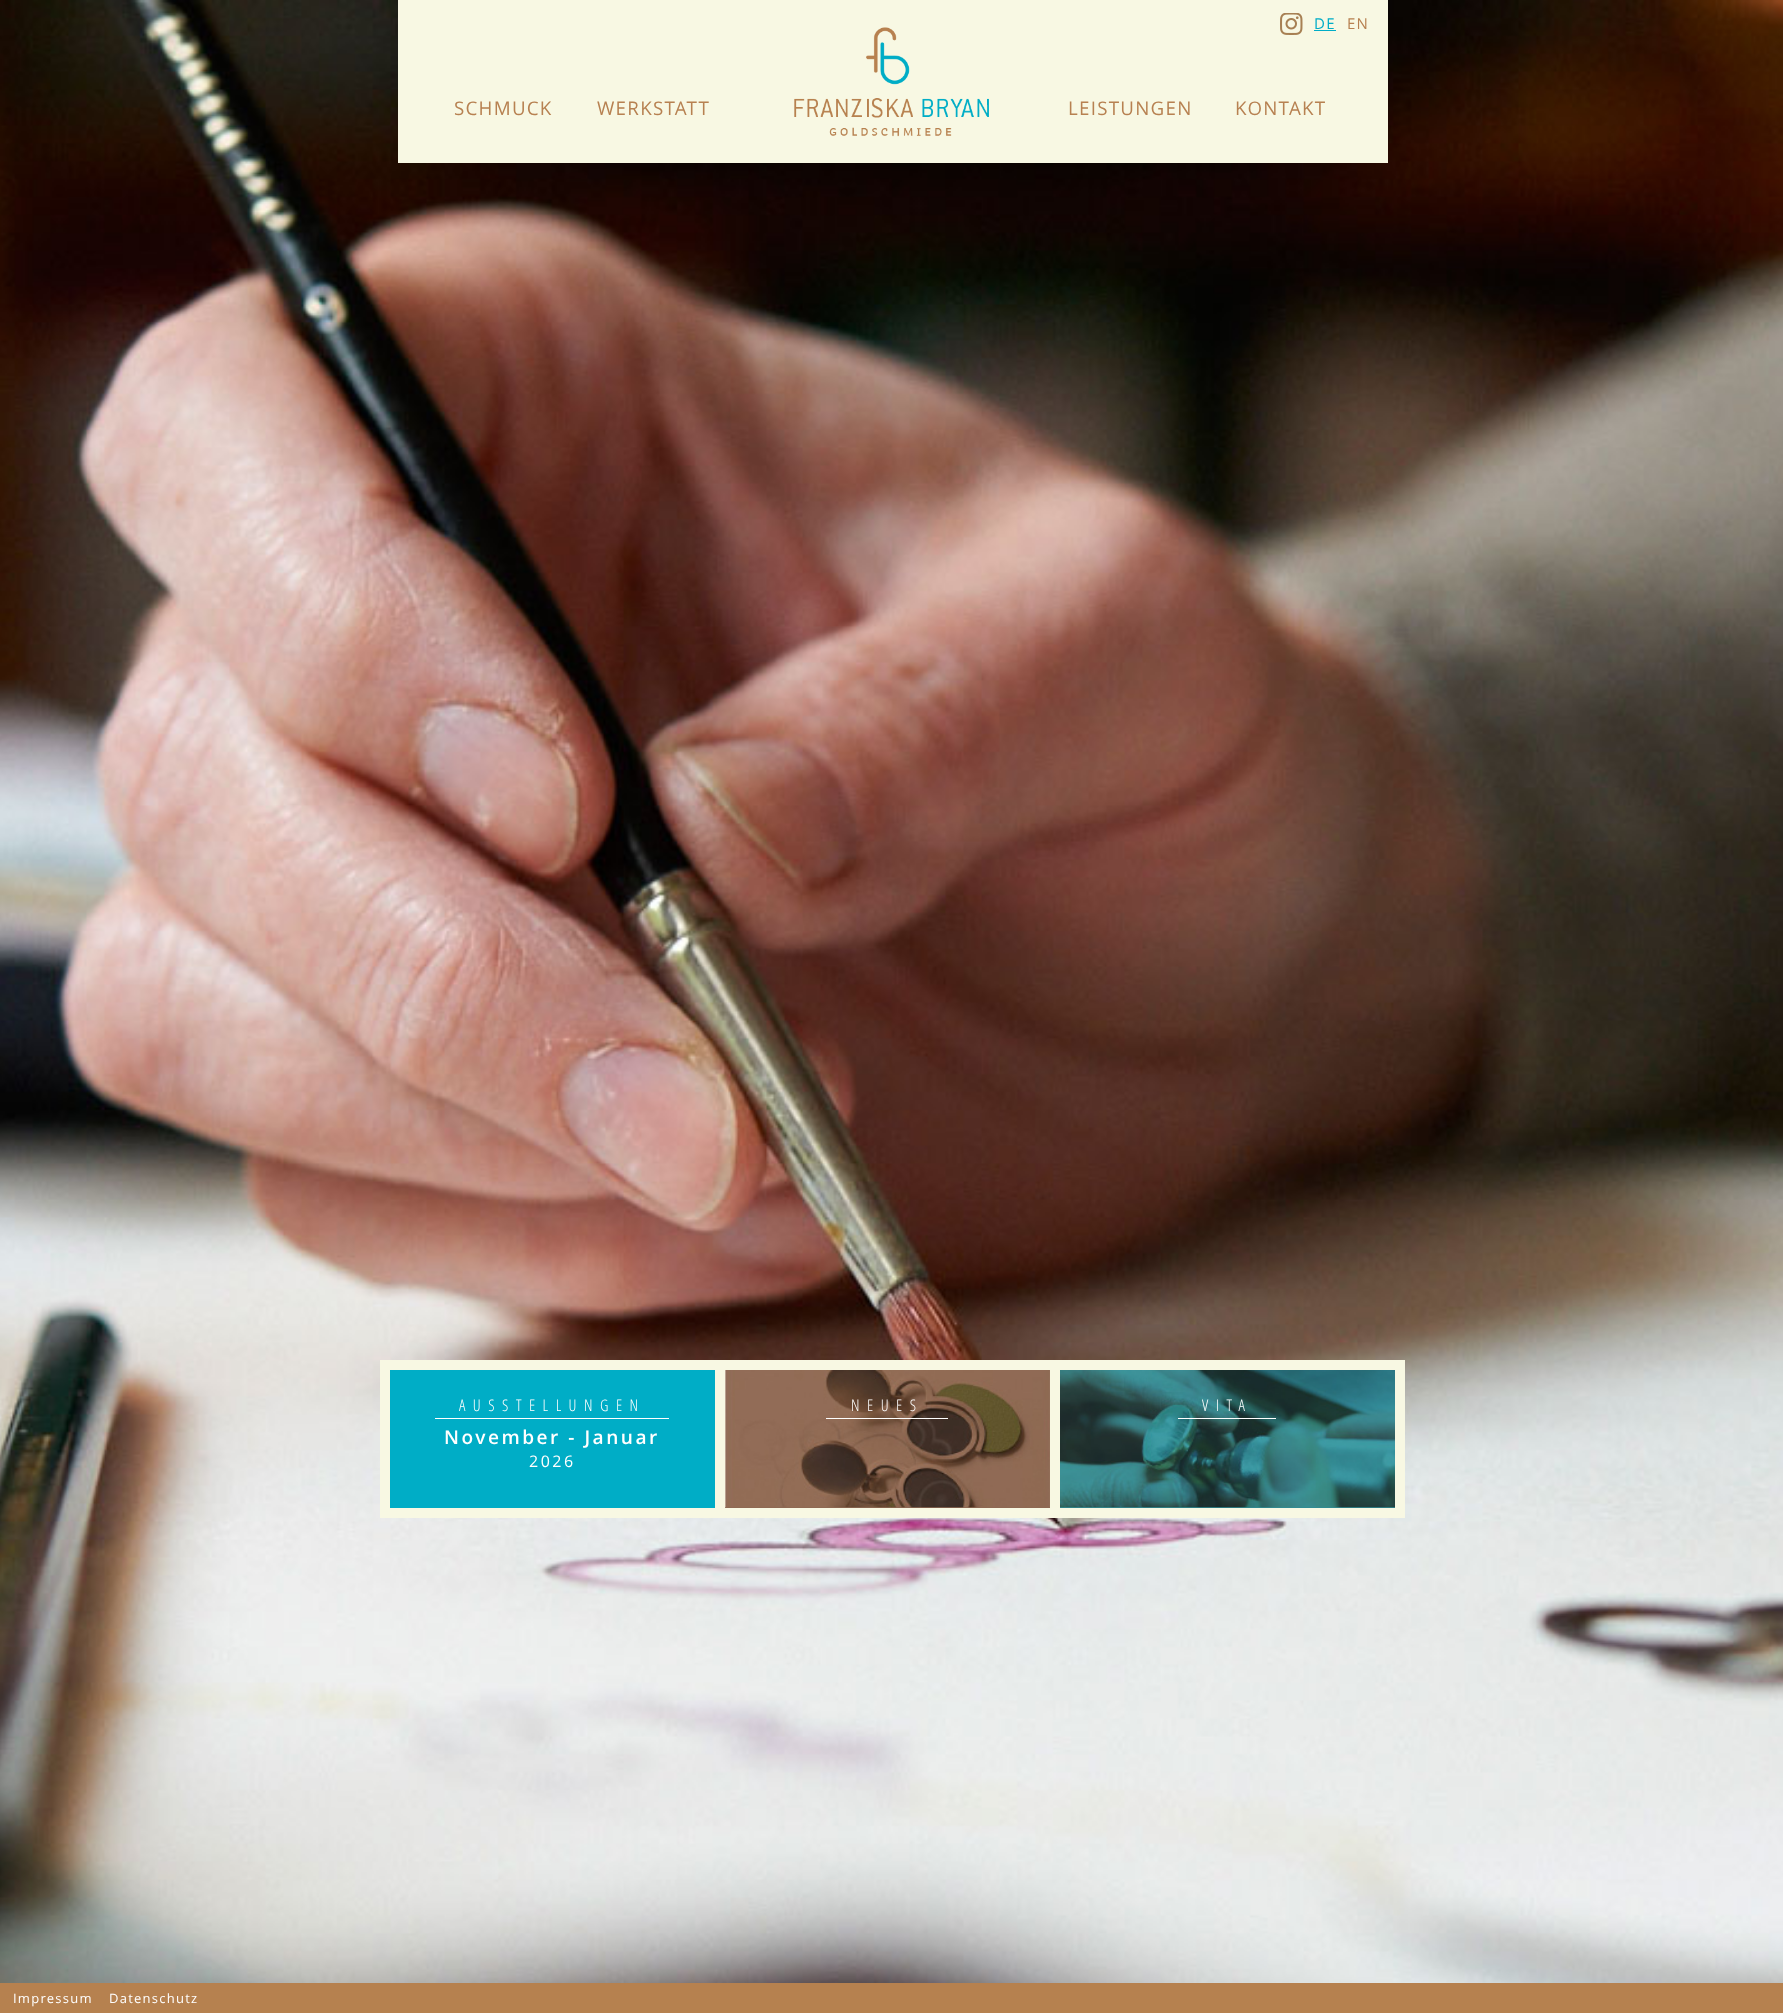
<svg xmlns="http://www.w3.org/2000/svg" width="1783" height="2013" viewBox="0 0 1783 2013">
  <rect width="100%" height="100%" fill="rgb(255,255,255)"/>
  <image x="0" y="0" width="1783" height="1983" href="pic1.png"/>
  <rect x="398" y="0" width="990" height="163" fill="rgb(248,248,227)"/>
  <image x="1280" y="13" width="23" height="22" href="pic2.png"/>
  <text x="1314" y="29" font-family="Open Sans" font-size="15" letter-spacing="1.25" fill="rgb(0,173,199)">DE</text>
  <rect x="1314" y="30" width="22" height="1" fill="rgb(0,173,199)"/>
  <text x="1347" y="29" font-family="Open Sans" font-size="15" letter-spacing="1.25" fill="rgb(183,129,81)">EN</text>
  <image x="794" y="27" width="195" height="110" href="pic3.png"/>
  <g font-family="Open Sans" font-size="18.75" letter-spacing="1.25" fill="rgb(183,129,81)">
    <text x="454" y="115">SCHMUCK</text>
    <text x="597" y="115">WERKSTATT</text>
    <text x="1068" y="115">LEISTUNGEN</text>
    <text x="1235" y="115">KONTAKT</text>
  </g>
  <rect x="385" y="1365" width="1015" height="148" fill="none" stroke="rgb(248,248,227)" stroke-width="10"/>
  <rect x="390" y="1370" width="325" height="138" fill="rgb(0,173,198)"/>
  <rect x="715" y="1370" width="10" height="138" fill="rgb(248,248,226)"/>
  <rect x="435" y="1418" width="234" height="1" fill="rgb(255,255,255)"/>
  <text x="459" y="1411" font-family="Open Sans" font-size="16" font-weight="300" letter-spacing="7.5" fill="rgb(255,255,255)">AUSSTELLUNGEN</text>
  <text x="444" y="1444" font-family="Open Sans" font-size="19.1" font-weight="600" letter-spacing="2.5" fill="rgb(255,255,255)">November - Januar</text>
  <text x="529" y="1467" font-family="Open Sans" font-size="16" letter-spacing="2.5" fill="rgb(255,255,255)">2026</text>
  <rect x="725" y="1507" width="325" height="1" fill="rgb(142,105,83)"/>
  <image x="725" y="1370" width="325" height="138" href="pic4.png"/>
  <rect x="1050" y="1370" width="10" height="138" fill="rgb(248,248,226)"/>
  <rect x="826" y="1418" width="122" height="1" fill="rgb(255,255,255)"/>
  <text x="851" y="1411" font-family="Open Sans" font-size="16" font-weight="300" letter-spacing="7.5" fill="rgb(255,255,255)">NEUES</text>
  <rect x="1060" y="1507" width="335" height="1" fill="rgb(47,141,150)"/>
  <image x="1060" y="1370" width="335" height="138" href="pic5.png"/>
  <rect x="1178" y="1418" width="98" height="1" fill="rgb(255,255,255)"/>
  <text x="1202" y="1411" font-family="Open Sans" font-size="16" font-weight="300" letter-spacing="7.5" fill="rgb(255,255,255)">VITA</text>
  <rect x="0" y="1983" width="1783" height="30" fill="rgb(182,129,79)"/>
  <g font-family="Open Sans" font-size="13" letter-spacing="1.25" fill="rgb(255,255,255)">
    <text x="13" y="2003">Impressum</text>
    <text x="109" y="2003">Datenschutz</text>
  </g>
</svg>
